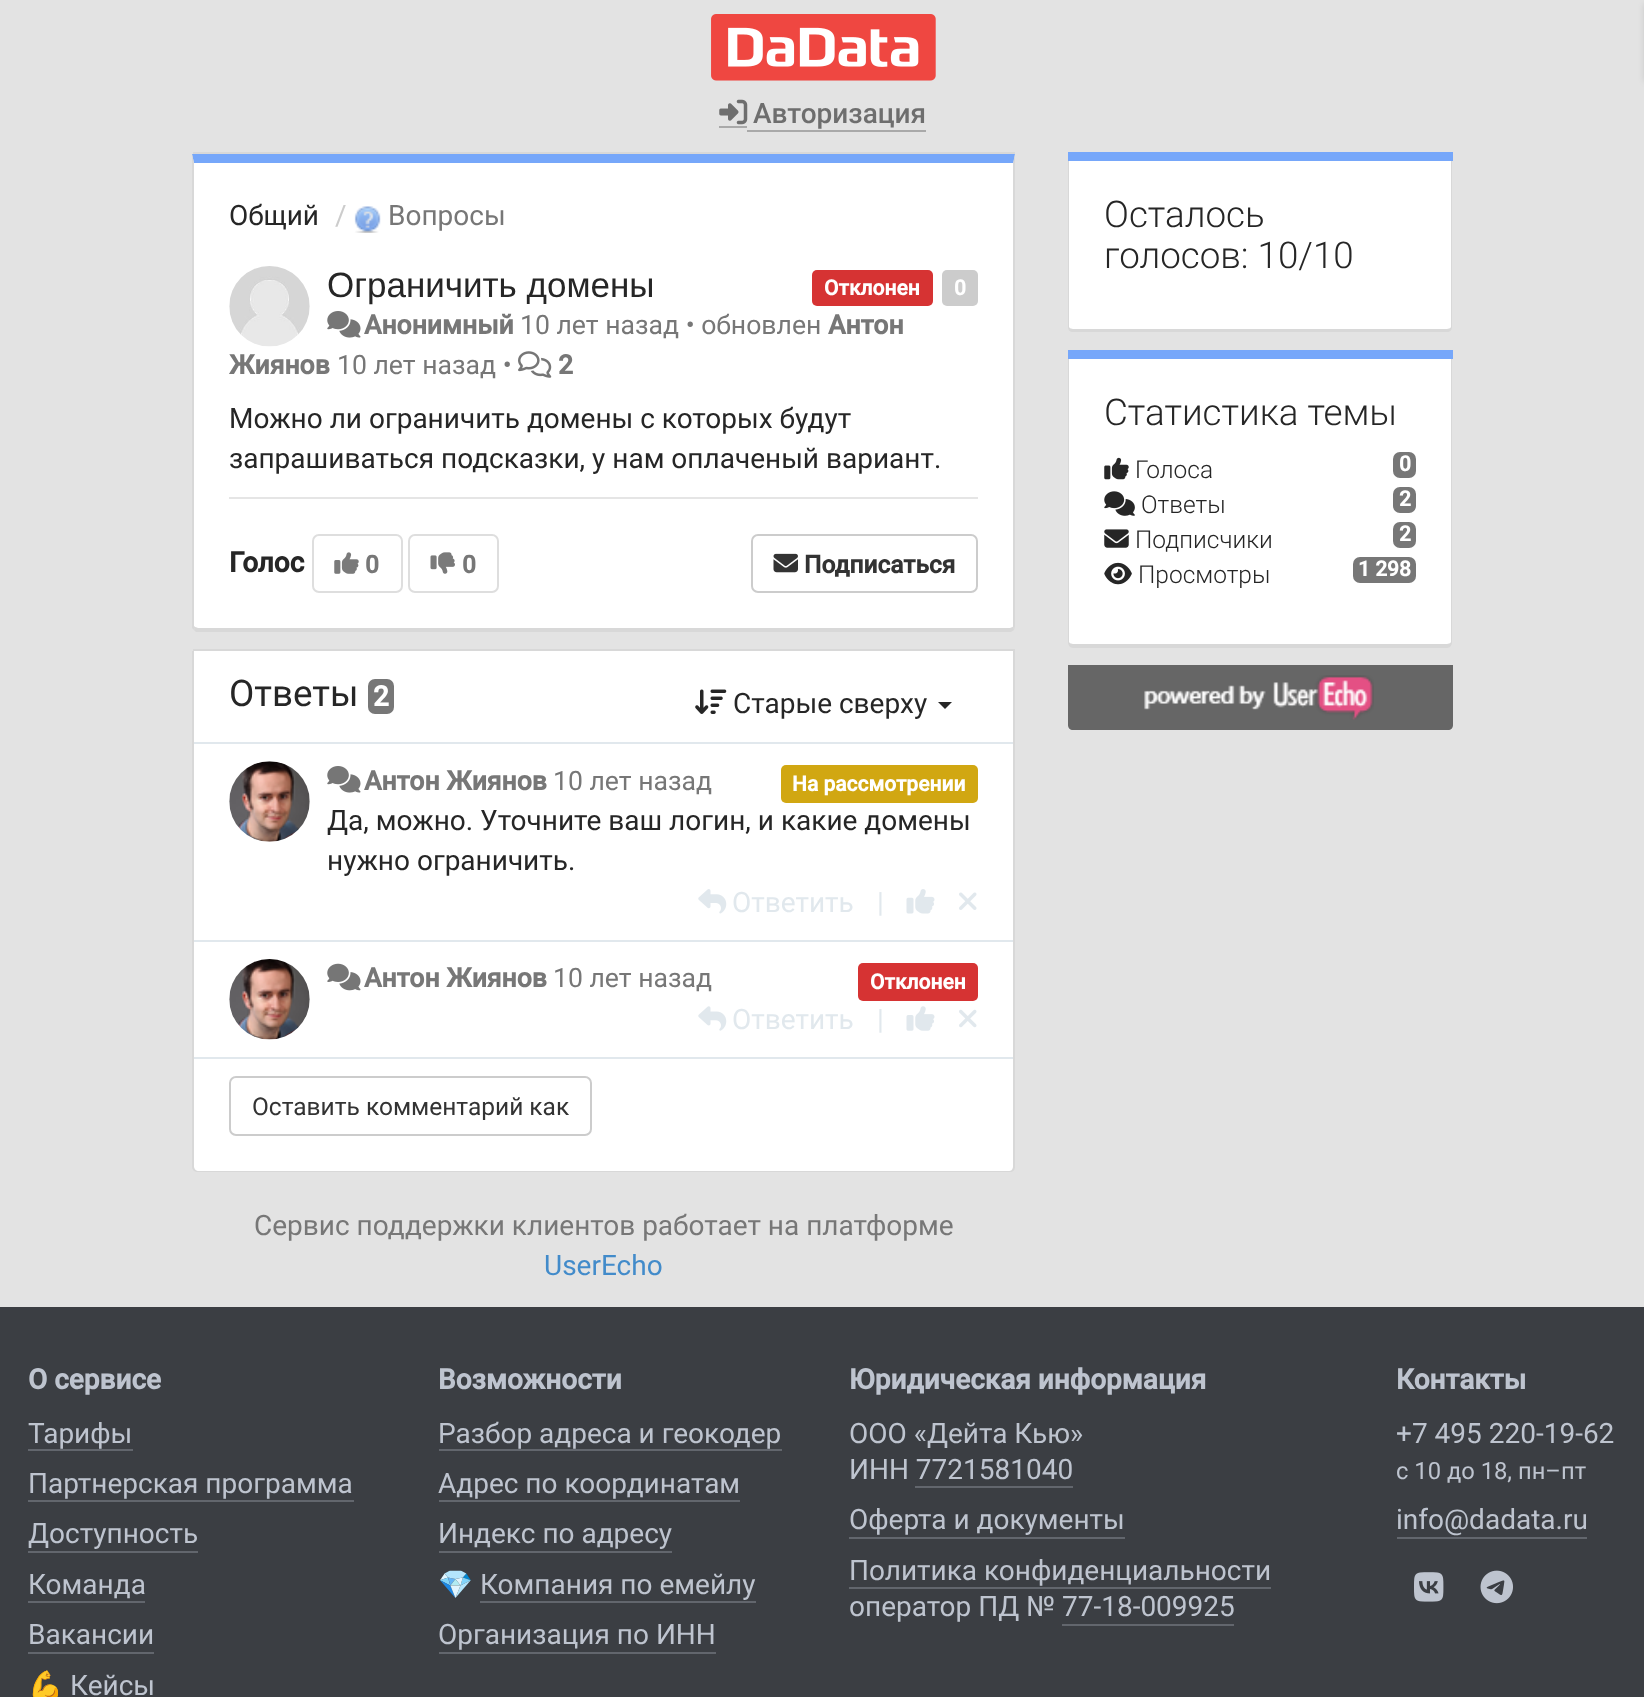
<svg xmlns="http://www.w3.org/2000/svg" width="1644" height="1697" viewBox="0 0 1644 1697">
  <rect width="100%" height="100%" fill="rgb(227,227,227)"/>
  <image x="711" y="14" width="225" height="67" href="pic1.png"/>
  <rect x="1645" y="4" width="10" height="77" fill="rgba(0,0,0,0.15)" filter="blur(3.5px)"/>
  <rect x="719" y="126" width="28" height="2" fill="rgb(169,169,169)"/>
  <rect x="747" y="130" width="179" height="2" fill="rgb(169,169,169)"/>
  <image x="719" y="99" width="29" height="26" href="pic2.png"/>
  <text x="753" y="123" font-family="Roboto" font-size="28" font-weight="500" fill="rgb(110,110,110)">Авторизация</text>
  <rect x="193" y="152" width="822" height="2" fill="rgb(216,216,216)"/>
  <path d="M194 163H1013V626C1013 627 1012 628 1010 628H198C196 628 194 627 194 626Z" fill="rgb(255,255,255)"/>
  <path d="M192 154L194 163H1013V164L1015 154Z" fill="rgb(118,167,250)"/>
  <path d="M1015 154L1013 164V626V627L1014 630L1015 626Z" fill="rgb(216,216,216)"/>
  <path d="M196 632L194 630L195 627L198 628H1010L1013 627L1014 630L1011 632Z" fill="rgb(216,216,216)"/>
  <path d="M194 163V626L195 627L194 630L192 628V154Z" fill="rgb(216,216,216)"/>
  <text x="229" y="225" font-family="Roboto" font-size="28" fill="rgb(38,38,38)">Общий</text>
  <text x="335" y="225" font-family="Roboto" font-size="28" fill="rgb(204,204,204)">/</text>
  <image x="354" y="206" width="27" height="27" href="pic3.png"/>
  <text x="388" y="225" font-family="Roboto" font-size="28" fill="rgb(119,119,119)">Вопросы</text>
  <image x="229" y="266" width="81" height="81" href="pic4.png"/>
  <text x="327" y="297" font-family="Liberation Sans" font-size="35" fill="rgb(38,38,38)">Ограничить домены</text>
  <rect x="812" y="270" width="121" height="36" rx="5" fill="rgb(214,51,51)"/>
  <text x="824" y="295" font-family="Roboto" font-size="21" font-weight="bold" fill="rgb(255,255,255)">Отклонен</text>
  <rect x="942" y="270" width="36" height="36" rx="5" fill="rgb(204,204,204)"/>
  <text x="954" y="295" font-family="Roboto" font-size="21" font-weight="bold" fill="rgb(255,255,255)">0</text>
  <image x="327" y="311" width="34" height="27" href="pic5.png"/>
  <text x="364" y="334" font-family="Roboto" font-size="26.6" font-weight="bold" fill="rgb(119,119,119)">Анонимный</text>
  <text x="520" y="334" font-family="Roboto" font-size="26.6" fill="rgb(119,119,119)">10 лет назад • обновлен</text>
  <g font-family="Roboto" font-size="26.6" font-weight="bold" fill="rgb(119,119,119)">
    <text x="828" y="334">Антон</text>
    <text x="229" y="374">Жиянов</text>
  </g>
  <text x="337" y="374" font-family="Roboto" font-size="26.6" fill="rgb(119,119,119)">10 лет назад •</text>
  <image x="518" y="351" width="34" height="27" href="pic6.png"/>
  <text x="558" y="374" font-family="Roboto" font-size="26.6" font-weight="bold" fill="rgb(119,119,119)">2</text>
  <g font-family="Roboto" font-size="28" fill="rgb(38,38,38)">
    <text>
      <tspan x="229" y="428">Можно ли ограничить домены с которых будут</tspan>
      <tspan x="229" y="468">запрашиваться подсказки, у нам оплаченый вариант.</tspan>
    </text>
  </g>
  <rect x="229" y="497" width="749" height="2" fill="rgb(229,229,229)"/>
  <text x="229" y="572" font-family="Roboto" font-size="28" font-weight="bold" fill="rgb(38,38,38)">Голос</text>
  <rect x="313" y="535" width="89" height="57" rx="6" fill="none" stroke="rgb(222,222,222)" stroke-width="2"/>
  <image x="334" y="552" width="25" height="22" href="pic7.png"/>
  <text x="365" y="573" font-family="Roboto" font-size="24.5" font-weight="bold" fill="rgb(119,119,119)">0</text>
  <rect x="409" y="535" width="89" height="57" rx="6" fill="none" stroke="rgb(222,222,222)" stroke-width="2"/>
  <image x="430" y="552" width="25" height="22" href="pic8.png"/>
  <text x="462" y="573" font-family="Roboto" font-size="24.5" font-weight="bold" fill="rgb(119,119,119)">0</text>
  <rect x="752" y="535" width="225" height="57" rx="6" fill="none" stroke="rgb(204,204,204)" stroke-width="2"/>
  <image x="773" y="553" width="25" height="20" href="pic9.png"/>
  <text x="804" y="573" font-family="Roboto" font-size="24.5" font-weight="bold" fill="rgb(51,51,51)">Подписаться</text>
  <rect x="193" y="649" width="822" height="2" fill="rgb(216,216,216)"/>
  <path d="M194 651H1013V1167C1013 1169 1011 1171 1009 1171H198C196 1171 194 1169 194 1167Z" fill="rgb(255,255,255)"/>
  <path d="M192 651H1015V1167C1015 1170 1013 1172 1010 1172H198C195 1172 192 1170 192 1167ZM194 651H1013V1167C1013 1169 1012 1171 1010 1171H198C196 1171 194 1169 194 1167Z" fill="rgb(216,216,216)" fill-rule="evenodd"/>
  <text x="229" y="706" font-family="Roboto" font-size="36.75" fill="rgb(38,38,38)">Ответы</text>
  <rect x="368" y="679" width="26" height="35" rx="7" fill="rgb(119,119,119)"/>
  <text x="373" y="706" font-family="Roboto" font-size="28" font-weight="bold" fill="rgb(255,255,255)">2</text>
  <image x="695" y="689" width="32" height="25" href="pic10.png"/>
  <text x="733" y="713" font-family="Roboto" font-size="28" fill="rgb(38,38,38)">Старые сверху</text>
  <path d="M938 702H952L945 709Z" fill="rgb(38,38,38)"/>
  <rect x="194" y="742" width="819" height="2" fill="rgb(225,232,237)"/>
  <rect x="194" y="940" width="819" height="2" fill="rgb(225,232,237)"/>
  <image x="229" y="761" width="81" height="81" href="pic11.png"/>
  <image x="327" y="766" width="34" height="27" href="pic5.png"/>
  <text x="364" y="790" font-family="Roboto" font-size="26.6" font-weight="bold" fill="rgb(119,119,119)">Антон Жиянов</text>
  <text x="553" y="790" font-family="Roboto" font-size="26.6" fill="rgb(119,119,119)">10 лет назад</text>
  <rect x="781" y="765" width="197" height="38" rx="5" fill="rgb(209,167,18)"/>
  <text x="792" y="791" font-family="Roboto" font-size="21" font-weight="bold" fill="rgb(255,255,255)">На рассмотрении</text>
  <g font-family="Roboto" font-size="28" fill="rgb(38,38,38)">
    <text>
      <tspan x="327" y="830">Да, можно. Уточните ваш логин, и какие домены</tspan>
      <tspan x="327" y="870">нужно ограничить.</tspan>
    </text>
  </g>
  <image x="698" y="889" width="29" height="25" href="pic12.png"/>
  <g font-family="Roboto" font-size="28" fill="rgb(225,232,237)">
    <text x="732" y="912">Ответить</text>
    <text x="877" y="912">|</text>
  </g>
  <image x="906" y="889" width="29" height="25" href="pic13.png"/>
  <image x="959" y="892" width="18" height="18" href="pic14.png"/>
  <rect x="194" y="1057" width="819" height="2" fill="rgb(225,232,237)"/>
  <image x="229" y="959" width="81" height="81" href="pic15.png"/>
  <image x="327" y="963" width="34" height="28" href="pic16.png"/>
  <text x="364" y="987" font-family="Roboto" font-size="26.6" font-weight="bold" fill="rgb(119,119,119)">Антон Жиянов</text>
  <text x="553" y="987" font-family="Roboto" font-size="26.6" fill="rgb(119,119,119)">10 лет назад</text>
  <rect x="858" y="963" width="120" height="38" rx="5" fill="rgb(214,51,51)"/>
  <text x="870" y="989" font-family="Roboto" font-size="21" font-weight="bold" fill="rgb(255,255,255)">Отклонен</text>
  <image x="698" y="1006" width="29" height="25" href="pic17.png"/>
  <g font-family="Roboto" font-size="28" fill="rgb(225,232,237)">
    <text x="732" y="1029">Ответить</text>
    <text x="877" y="1029">|</text>
  </g>
  <image x="906" y="1006" width="29" height="25" href="pic18.png"/>
  <image x="959" y="1009" width="18" height="19" href="pic19.png"/>
  <rect x="230" y="1077" width="361" height="58" rx="6" fill="none" stroke="rgb(204,204,204)" stroke-width="2"/>
  <text x="252" y="1115" font-family="Roboto" font-size="24.5" fill="rgb(51,51,51)">Оставить комментарий как</text>
  <text x="254" y="1235" font-family="Roboto" font-size="28" fill="rgb(119,119,119)">Сервис поддержки клиентов работает на платформе</text>
  <text x="544" y="1275" font-family="Roboto" font-size="28" fill="rgb(66,139,202)">UserEcho</text>
  <rect x="1068" y="152" width="385" height="9" fill="rgb(118,167,250)"/>
  <path d="M1069 161H1451V327C1451 328 1449 329 1447 329H1073C1071 329 1069 328 1069 327Z" fill="rgb(255,255,255)"/>
  <path d="M1068 161H1452V327C1452 330 1450 332 1447 332H1073C1070 332 1068 330 1068 327ZM1069 161H1451V327C1451 328 1449 329 1447 329H1073C1071 329 1069 328 1069 327Z" fill="rgb(216,216,216)" fill-rule="evenodd"/>
  <g font-family="Roboto" font-size="36.75" font-weight="300" fill="rgb(38,38,38)">
    <text>
      <tspan x="1104" y="227">Осталось</tspan>
      <tspan x="1104" y="268">голосов: 10/10</tspan>
    </text>
  </g>
  <rect x="1068" y="350" width="385" height="9" fill="rgb(118,167,250)"/>
  <path d="M1069 359H1451V642C1451 643 1449 644 1447 644H1073C1071 644 1069 643 1069 642Z" fill="rgb(255,255,255)"/>
  <path d="M1068 359H1452V642C1452 645 1450 648 1447 648H1073C1070 648 1068 645 1068 642ZM1069 359H1451V642C1451 643 1449 644 1447 644H1073C1071 644 1069 643 1069 642Z" fill="rgb(216,216,216)" fill-rule="evenodd"/>
  <text x="1104" y="425" font-family="Roboto" font-size="36.75" font-weight="300" fill="rgb(38,38,38)">Статистика темы</text>
  <image x="1104" y="457" width="25" height="23" href="pic20.png"/>
  <text x="1135" y="478" font-family="Roboto" font-size="24.5" font-weight="300" fill="rgb(38,38,38)">Голоса</text>
  <rect x="1393" y="452" width="23" height="26" rx="7" fill="rgb(119,119,119)"/>
  <text x="1399" y="471" font-family="Roboto" font-size="21" font-weight="bold" fill="rgb(255,255,255)">0</text>
  <image x="1104" y="491" width="31" height="25" href="pic21.png"/>
  <text x="1141" y="513" font-family="Roboto" font-size="24.5" font-weight="300" fill="rgb(38,38,38)">Ответы</text>
  <rect x="1393" y="487" width="23" height="26" rx="7" fill="rgb(119,119,119)"/>
  <text x="1399" y="506" font-family="Roboto" font-size="21" font-weight="bold" fill="rgb(255,255,255)">2</text>
  <image x="1104" y="529" width="25" height="19" href="pic22.png"/>
  <text x="1135" y="548" font-family="Roboto" font-size="24.5" font-weight="300" fill="rgb(38,38,38)">Подписчики</text>
  <rect x="1393" y="522" width="23" height="26" rx="7" fill="rgb(119,119,119)"/>
  <text x="1399" y="541" font-family="Roboto" font-size="21" font-weight="bold" fill="rgb(255,255,255)">2</text>
  <image x="1104" y="562" width="28" height="23" href="pic23.png"/>
  <text x="1138" y="583" font-family="Roboto" font-size="24.5" font-weight="300" fill="rgb(38,38,38)">Просмотры</text>
  <rect x="1353" y="557" width="63" height="26" rx="7" fill="rgb(119,119,119)"/>
  <text x="1358" y="576" font-family="Roboto" font-size="21" font-weight="bold" fill="rgb(255,255,255)">1 298</text>
  <path d="M1068 665H1453V725C1453 728 1451 730 1448 730H1073C1070 730 1068 728 1068 725Z" fill="rgb(102,102,102)"/>
  <image x="1144" y="675" width="230" height="45" href="pic24.png"/>
  <rect x="0" y="1307" width="1644" height="390" fill="rgb(59,62,67)"/>
  <text x="28" y="1389" font-family="Roboto" font-size="28" font-weight="bold" fill="rgb(190,196,207)">О сервисе</text>
  <text x="28" y="1443" font-family="Roboto" font-size="28" fill="rgb(190,196,207)">Тарифы</text>
  <rect x="28" y="1449" width="105" height="2" fill="rgb(98,102,109)"/>
  <text x="28" y="1493" font-family="Roboto" font-size="28" fill="rgb(190,196,207)">Партнерская программа</text>
  <rect x="28" y="1500" width="326" height="2" fill="rgb(98,102,109)"/>
  <text x="28" y="1543" font-family="Roboto" font-size="28" fill="rgb(190,196,207)">Доступность</text>
  <rect x="28" y="1551" width="170" height="2" fill="rgb(98,102,109)"/>
  <text x="28" y="1594" font-family="Roboto" font-size="28" fill="rgb(190,196,207)">Команда</text>
  <rect x="28" y="1601" width="117" height="2" fill="rgb(98,102,109)"/>
  <text x="28" y="1644" font-family="Roboto" font-size="28" fill="rgb(190,196,207)">Вакансии</text>
  <rect x="28" y="1652" width="126" height="2" fill="rgb(98,102,109)"/>
  <text x="28" y="1695" font-family="Noto Color Emoji" font-size="28" fill="rgb(190,196,207)">💪</text>
  <text x="70" y="1695" font-family="Roboto" font-size="28" fill="rgb(190,196,207)">Кейсы</text>
  <text x="438" y="1389" font-family="Roboto" font-size="28" font-weight="bold" fill="rgb(190,196,207)">Возможности</text>
  <text x="438" y="1443" font-family="Roboto" font-size="28" fill="rgb(190,196,207)">Разбор адреса и геокодер</text>
  <rect x="439" y="1449" width="343" height="2" fill="rgb(98,102,109)"/>
  <text x="438" y="1493" font-family="Roboto" font-size="28" fill="rgb(190,196,207)">Адрес по координатам</text>
  <rect x="439" y="1500" width="301" height="2" fill="rgb(98,102,109)"/>
  <text x="438" y="1543" font-family="Roboto" font-size="28" fill="rgb(190,196,207)">Индекс по адресу</text>
  <rect x="439" y="1551" width="233" height="2" fill="rgb(98,102,109)"/>
  <text x="438" y="1594" font-family="Noto Color Emoji" font-size="28" fill="rgb(190,196,207)">💎</text>
  <text x="480" y="1594" font-family="Roboto" font-size="28" fill="rgb(190,196,207)">Компания по емейлу</text>
  <rect x="480" y="1601" width="276" height="2" fill="rgb(98,102,109)"/>
  <text x="438" y="1644" font-family="Roboto" font-size="28" fill="rgb(190,196,207)">Организация по ИНН</text>
  <rect x="439" y="1652" width="277" height="2" fill="rgb(98,102,109)"/>
  <text x="849" y="1389" font-family="Roboto" font-size="28" font-weight="bold" fill="rgb(190,196,207)">Юридическая информация</text>
  <g font-family="Roboto" font-size="28" fill="rgb(190,196,207)">
    <text>
      <tspan x="849" y="1443">ООО «Дейта Кью»</tspan>
      <tspan x="849" y="1479">ИНН 7721581040</tspan>
    </text>
  </g>
  <rect x="915" y="1486" width="158" height="2" fill="rgb(98,102,109)"/>
  <text x="849" y="1529" font-family="Roboto" font-size="28" fill="rgb(190,196,207)">Оферта и документы</text>
  <rect x="849" y="1537" width="276" height="2" fill="rgb(98,102,109)"/>
  <text x="849" y="1580" font-family="Roboto" font-size="28" fill="rgb(190,196,207)">Политика конфиденциальности</text>
  <rect x="849" y="1587" width="422" height="2" fill="rgb(98,102,109)"/>
  <text x="849" y="1616" font-family="Roboto" font-size="28" fill="rgb(190,196,207)">оператор ПД № 77-18-009925</text>
  <rect x="1062" y="1624" width="172" height="2" fill="rgb(98,102,109)"/>
  <text x="1396" y="1389" font-family="Roboto" font-size="28" font-weight="bold" fill="rgb(190,196,207)">Контакты</text>
  <text x="1396" y="1443" font-family="Roboto" font-size="28" fill="rgb(190,196,207)">+7 495 220-19-62</text>
  <text x="1396" y="1479" font-family="Roboto" font-size="23.75" fill="rgb(190,196,207)">с 10 до 18, пн–пт</text>
  <text x="1396" y="1529" font-family="Roboto" font-size="28" fill="rgb(190,196,207)">info@dadata.ru</text>
  <rect x="1397" y="1537" width="190" height="2" fill="rgb(98,102,109)"/>
  <image x="1414" y="1572" width="30" height="30" href="pic25.png"/>
  <image x="1480" y="1570" width="33" height="34" href="pic26.png"/>
</svg>
